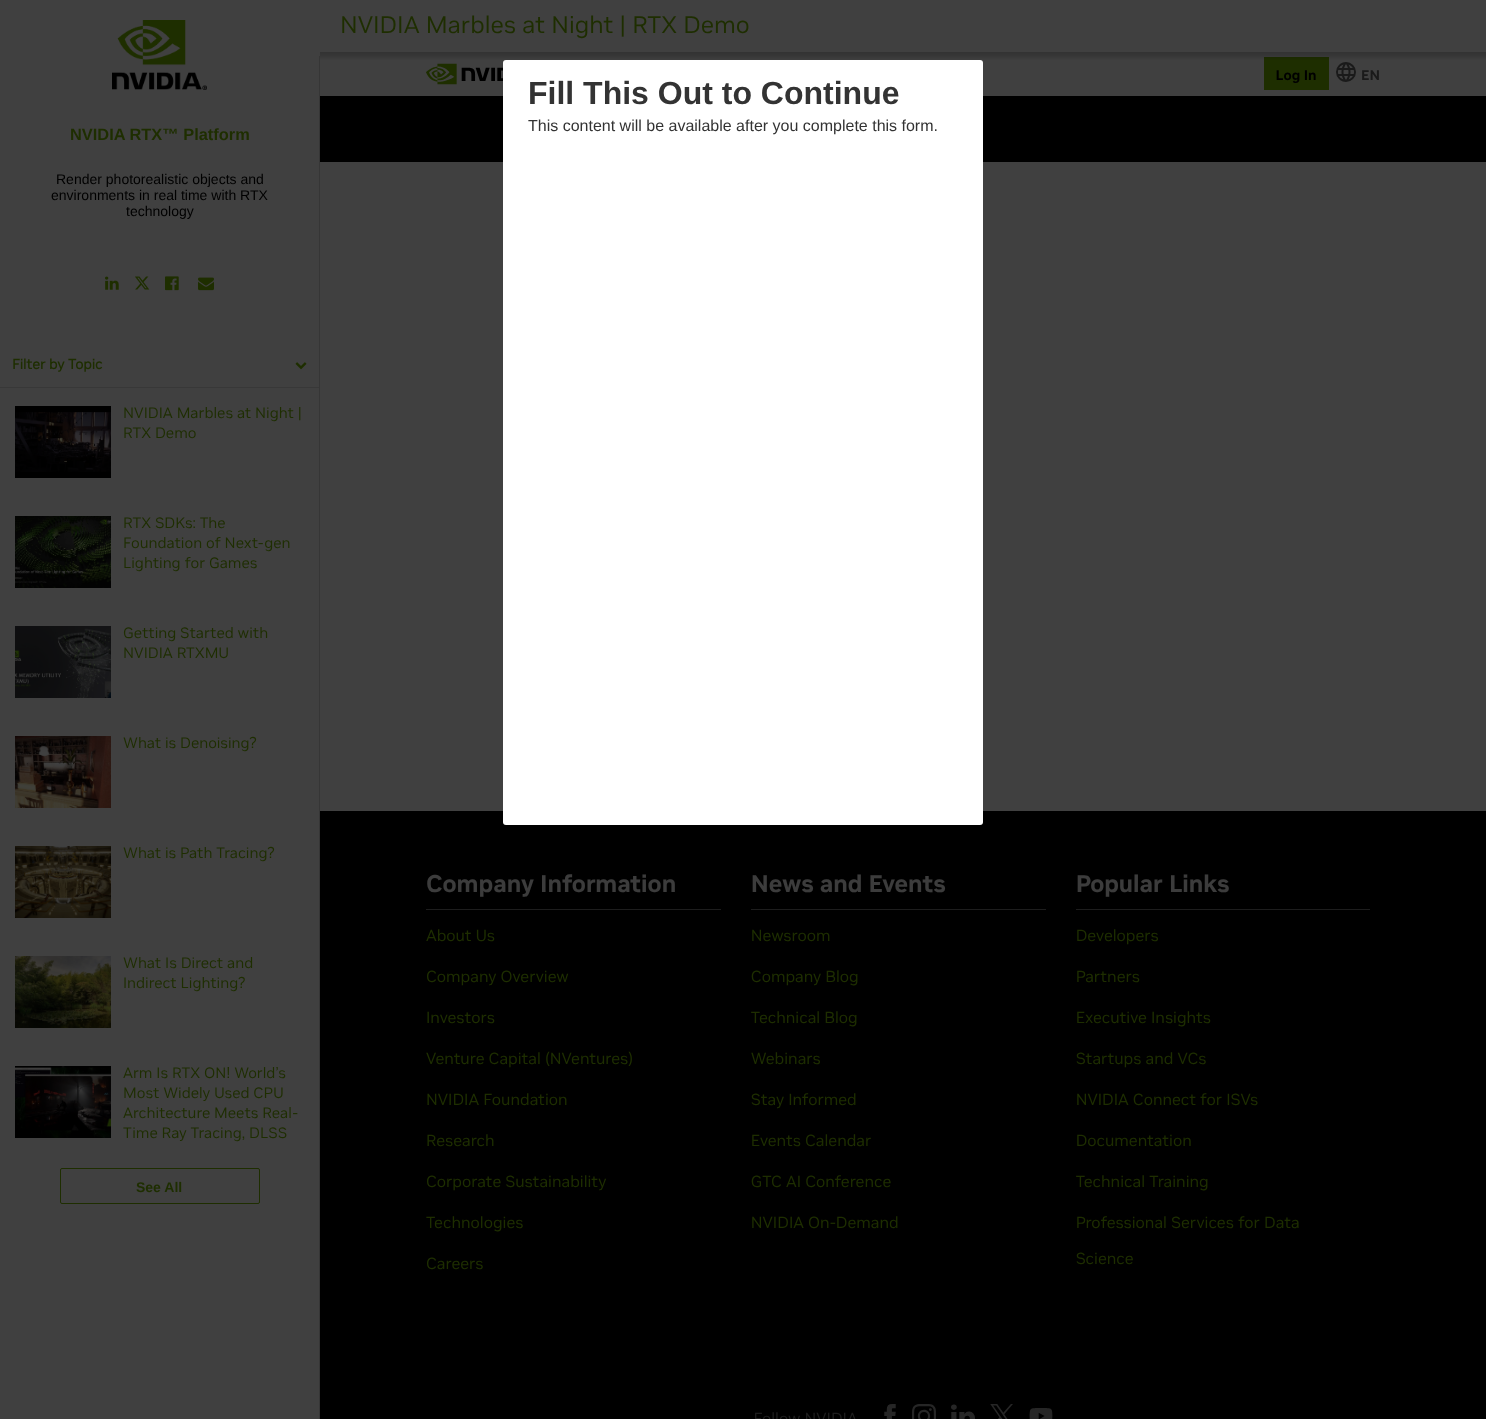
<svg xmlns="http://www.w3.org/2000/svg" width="1486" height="1419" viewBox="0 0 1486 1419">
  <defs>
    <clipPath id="clip1"><rect x="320" y="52" width="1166" height="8"/></clipPath>
  </defs>
  <rect width="100%" height="100%" fill="rgb(64,64,64)"/>
  <image x="320" y="57" width="1166" height="1362" href="pic14.png"/>
  <g clip-path="url(#clip1)">
    <rect x="315" y="-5" width="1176" height="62" fill="rgba(0,0,0,0.2)" filter="blur(2.5px)"/>
  </g>
  <text x="340" y="33" font-family="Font" font-size="24" fill="rgb(30,46,0)">NVIDIA Marbles at Night | RTX Demo</text>
  <rect x="313" y="0" width="6" height="59" fill="rgb(64,64,64)"/>
  <rect x="319" y="56" width="1" height="1363" fill="rgb(54,54,54)"/>
  <rect x="0" y="387" width="319" height="1" fill="rgb(56,56,56)"/>
  <image x="112" y="20" width="95" height="70" href="pic1.png"/>
  <text x="70" y="140" font-family="Liberation Sans" font-size="16.4" font-weight="bold" fill="rgb(30,46,0)">NVIDIA RTX™ Platform</text>
  <g font-family="Liberation Sans" font-size="14" fill="rgb(0,0,0)">
    <text x="56" y="184">Render photorealistic objects and</text>
    <text x="51" y="200">environments in real time with RTX</text>
    <text x="126" y="216">technology</text>
  </g>
  <image x="105" y="276" width="14" height="14" href="pic2.png"/>
  <image x="135" y="276" width="15" height="14" href="pic3.png"/>
  <image x="165" y="276" width="14" height="15" href="pic4.png"/>
  <image x="198" y="277" width="16" height="14" href="pic5.png"/>
  <text x="12" y="369" font-family="Font" font-size="14" font-weight="bold" fill="rgb(30,46,0)">Filter by Topic</text>
  <image x="295" y="362" width="12" height="8" href="pic6.png"/>
  <image x="15" y="406" width="96" height="72" href="pic7.png"/>
  <g font-family="Font" font-size="15" fill="rgb(30,46,0)">
    <text>
      <tspan x="123" y="418">NVIDIA Marbles at Night |</tspan>
      <tspan x="123" y="438">RTX Demo</tspan>
    </text>
  </g>
  <image x="15" y="516" width="96" height="72" href="pic8.png"/>
  <g font-family="Font" font-size="15" fill="rgb(30,46,0)">
    <text>
      <tspan x="123" y="528">RTX SDKs: The</tspan>
      <tspan x="123" y="548">Foundation of Next-gen</tspan>
      <tspan x="123" y="568">Lighting for Games</tspan>
    </text>
  </g>
  <image x="15" y="626" width="96" height="72" href="pic9.png"/>
  <g font-family="Font" font-size="15" fill="rgb(30,46,0)">
    <text>
      <tspan x="123" y="638">Getting Started with</tspan>
      <tspan x="123" y="658">NVIDIA RTXMU</tspan>
    </text>
  </g>
  <image x="15" y="736" width="96" height="72" href="pic10.png"/>
  <text x="123" y="748" font-family="Font" font-size="15" fill="rgb(30,46,0)">What is Denoising?</text>
  <image x="15" y="846" width="96" height="72" href="pic11.png"/>
  <text x="123" y="858" font-family="Font" font-size="15" fill="rgb(30,46,0)">What is Path Tracing?</text>
  <image x="15" y="956" width="96" height="72" href="pic12.png"/>
  <g font-family="Font" font-size="15" fill="rgb(30,46,0)">
    <text>
      <tspan x="123" y="968">What Is Direct and</tspan>
      <tspan x="123" y="988">Indirect Lighting?</tspan>
    </text>
  </g>
  <image x="15" y="1066" width="96" height="72" href="pic13.png"/>
  <g font-family="Font" font-size="15" fill="rgb(30,46,0)">
    <text>
      <tspan x="123" y="1078">Arm Is RTX ON! World’s</tspan>
      <tspan x="123" y="1098">Most Widely Used CPU</tspan>
      <tspan x="123" y="1118">Architecture Meets Real-</tspan>
      <tspan x="123" y="1138">Time Ray Tracing, DLSS</tspan>
    </text>
  </g>
  <rect x="60.5" y="1168.5" width="199" height="35" rx="1.5" fill="none" stroke="rgb(30,46,0)"/>
  <text x="136" y="1192" font-family="Liberation Sans" font-size="14" font-weight="bold" fill="rgb(30,46,0)">See All</text>
  <rect x="503" y="60" width="480" height="765" rx="3" fill="rgb(255,255,255)"/>
  <text x="528" y="104" font-family="Liberation Sans" font-size="32" font-weight="bold" fill="rgb(51,51,51)">Fill This Out to Continue</text>
  <text x="528" y="131" font-family="Liberation Sans" font-size="16" fill="rgb(51,51,51)">This content will be available after you complete this form.</text>
</svg>
